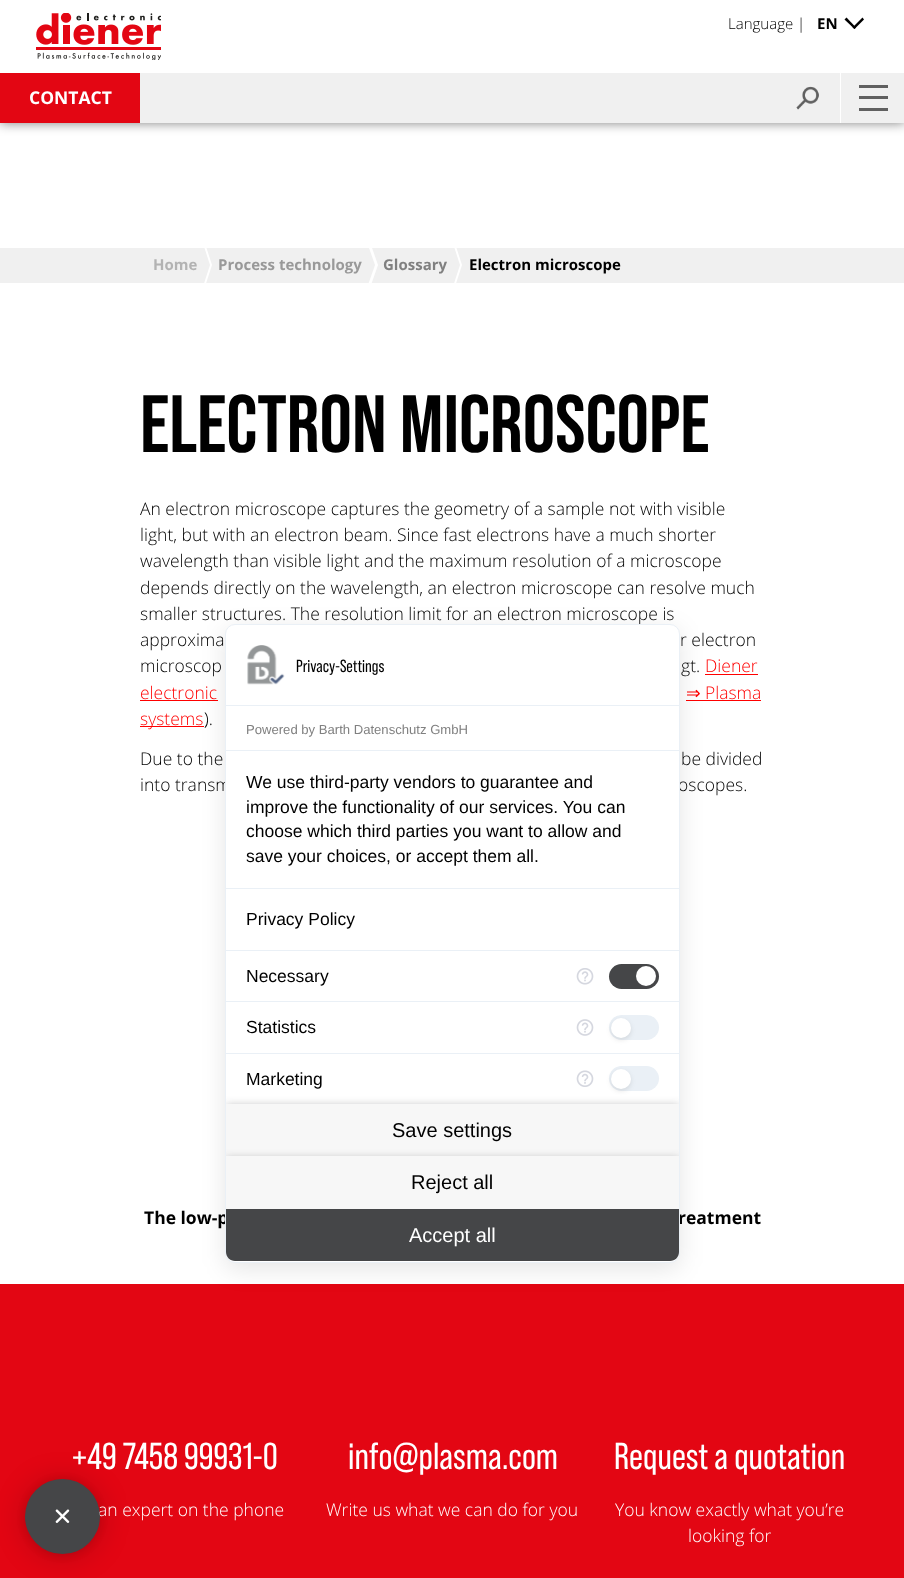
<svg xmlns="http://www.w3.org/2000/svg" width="904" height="1578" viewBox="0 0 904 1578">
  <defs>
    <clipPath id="clip1"><rect x="140" y="248" width="73" height="35"/></clipPath>
    <clipPath id="clip2"><rect x="213" y="248" width="165" height="35"/></clipPath>
    <clipPath id="clip3"><rect x="378" y="248" width="85" height="35"/></clipPath>
    <clipPath id="clip4"><rect x="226" y="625" width="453" height="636" rx="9"/></clipPath>
  </defs>
  <rect width="100%" height="100%" fill="rgb(255,255,255)"/>
  <rect x="0" y="0" width="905" height="123" fill="rgba(0,0,0,0.5)" filter="blur(6px)"/>
  <rect x="0" y="0" width="904" height="73" fill="rgb(255,255,255)"/>
  <image x="36" y="13" width="125" height="47" href="pic1.png"/>
  <text x="728" y="29" font-family="Open Sans" font-size="15" font-weight="300" fill="rgb(0,0,0)">Language |</text>
  <text x="817" y="29" font-family="Open Sans" font-size="15" font-weight="bold" fill="rgb(0,0,0)">EN</text>
  <path d="M852.5 27.5L862.5 17.5L864 19.5L854.5 29Z" fill="rgb(0,0,0)"/>
  <path d="M844.5 19.5L846.5 17.5L856 27.5L854.5 29Z" fill="rgb(0,0,0)"/>
  <rect x="0" y="73" width="140" height="50" fill="rgb(227,6,19)"/>
  <text x="29" y="104" font-family="Open Sans" font-size="17.5" font-weight="bold" fill="rgb(255,255,255)">CONTACT</text>
  <rect x="140" y="73" width="700" height="50" fill="rgb(240,240,240)"/>
  <image x="796" y="86" width="23" height="24" href="pic2.png"/>
  <rect x="841" y="73" width="63" height="50" fill="rgb(240,240,240)"/>
  <rect x="840" y="73" width="1" height="50" fill="rgb(255,255,255)"/>
  <rect x="859" y="96" width="29" height="3" fill="rgb(96,96,96)"/>
  <rect x="859" y="85" width="29" height="3" fill="rgb(96,96,96)"/>
  <rect x="859" y="108" width="29" height="3" fill="rgb(96,96,96)"/>
  <rect x="0" y="248" width="904" height="35" fill="rgb(240,240,240)"/>
  <g clip-path="url(#clip1)">
    <path d="M200 302V228L212 265Z" fill="rgb(255,255,255)"/>
    <path d="M198 302V228L210 265Z" fill="rgb(240,240,240)"/>
  </g>
  <text x="153" y="270" font-family="Open Sans" font-size="15" font-weight="bold" fill="rgb(179,179,179)">Home</text>
  <text x="218" y="270" font-family="Open Sans" font-size="15" font-weight="bold" fill="rgb(153,153,153)">Process technology</text>
  <g clip-path="url(#clip2)">
    <path d="M365 302V228L378 265Z" fill="rgb(255,255,255)"/>
    <path d="M362 302V228L375 265Z" fill="rgb(240,240,240)"/>
  </g>
  <g clip-path="url(#clip3)">
    <path d="M450 302V228L462 265Z" fill="rgb(255,255,255)"/>
    <path d="M448 302V228L460 265Z" fill="rgb(240,240,240)"/>
  </g>
  <text x="383" y="270" font-family="Open Sans" font-size="15" font-weight="bold" fill="rgb(128,128,128)">Glossary</text>
  <text x="469" y="270" font-family="Open Sans" font-size="15" font-weight="bold" fill="rgb(0,0,0)">Electron microscope</text>
  <text x="140" y="452" font-family="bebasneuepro" font-size="81.25" font-weight="bold" fill="rgb(0,0,0)">ELECTRON MICROSCOPE</text>
  <g font-family="Open Sans" font-size="17.5" font-weight="300" fill="rgb(0,0,0)">
    <text>
      <tspan x="140" y="515">An electron microscope captures the geometry of a sample not with visible</tspan>
      <tspan x="140" y="541">light, but with an electron beam. Since fast electrons have a much shorter</tspan>
      <tspan x="140" y="567">wavelength than visible light and the maximum resolution of a microscope</tspan>
      <tspan x="140" y="594">depends directly on the wavelength, an electron microscope can resolve much</tspan>
      <tspan x="140" y="620">smaller structures. The resolution limit for an electron microscope is</tspan>
      <tspan x="140" y="646">approxima</tspan>
    </text>
    <text x="680" y="646">r electron</text>
    <text x="140" y="672">microscop</text>
    <text x="681" y="672">gt.</text>
  </g>
  <text x="705" y="672" font-family="Open Sans" font-size="17.5" font-weight="300" fill="rgb(255,0,0)">Diener</text>
  <rect x="705" y="674" width="53" height="1" fill="rgb(255,0,0)"/>
  <text x="140" y="699" font-family="Open Sans" font-size="17.5" font-weight="300" fill="rgb(255,0,0)">electronic</text>
  <rect x="140" y="700" width="78" height="1" fill="rgb(255,0,0)"/>
  <text x="686" y="699" font-family="DejaVu Sans" font-size="17.5" fill="rgb(255,0,0)">⇒</text>
  <rect x="686" y="700" width="75" height="1" fill="rgb(255,0,0)"/>
  <text x="705" y="699" font-family="Open Sans" font-size="17.5" font-weight="300" fill="rgb(255,0,0)">Plasma</text>
  <rect x="140" y="726" width="64" height="1" fill="rgb(255,0,0)"/>
  <text x="140" y="725" font-family="Open Sans" font-size="17.5" font-weight="300" fill="rgb(255,0,0)">systems</text>
  <g font-family="Open Sans" font-size="17.5" font-weight="300" fill="rgb(0,0,0)">
    <text x="204" y="725">).</text>
    <text x="140" y="765">Due to the</text>
    <text x="681" y="765">be divided</text>
    <text x="140" y="791">into transm</text>
    <text x="678" y="791">oscopes.</text>
  </g>
  <g font-family="Open Sans" font-size="17.5" font-weight="bold" fill="rgb(0,0,0)">
    <text x="144" y="1224">The low-p</text>
    <text x="678" y="1224">reatment</text>
  </g>
  <rect x="0" y="1284" width="904" height="294" fill="rgb(227,6,19)"/>
  <rect x="225" y="630" width="455" height="639" rx="10" fill="rgba(0,0,0,0.1)" filter="blur(12.5px)"/>
  <rect x="225.5" y="624.5" width="454" height="638" rx="9.5" fill="rgb(255,255,255)" stroke="rgb(234,240,246)"/>
  <image x="247" y="645" width="38" height="40" href="pic3.png"/>
  <text x="296" y="672" font-family="bebasneuepro" font-size="17.5" fill="rgb(0,0,0)">Privacy-Settings</text>
  <rect x="226" y="705" width="453" height="1" fill="rgb(234,240,246)"/>
  <text x="246" y="734" font-family="Liberation Sans" font-size="13.1" fill="rgb(128,128,128)">Powered by Barth Datenschutz GmbH</text>
  <rect x="226" y="750" width="453" height="1" fill="rgb(234,240,246)"/>
  <g font-family="Liberation Sans" font-size="17.5" fill="rgb(0,0,0)">
    <text>
      <tspan x="246" y="788">We use third-party vendors to guarantee and</tspan>
      <tspan x="246" y="813">improve the functionality of our services. You can</tspan>
      <tspan x="246" y="837">choose which third parties you want to allow and</tspan>
      <tspan x="246" y="862">save your choices, or accept them all.</tspan>
    </text>
  </g>
  <rect x="226" y="888" width="453" height="1" fill="rgb(234,240,246)"/>
  <text x="246" y="925" font-family="Liberation Sans" font-size="17.5" fill="rgb(0,0,0)">Privacy Policy</text>
  <rect x="226" y="950" width="453" height="1" fill="rgb(234,240,246)"/>
  <text x="246" y="982" font-family="Liberation Sans" font-size="17.5" fill="rgb(0,0,0)">Necessary</text>
  <image x="576" y="968" width="18" height="17" href="pic4.png"/>
  <rect x="609" y="964" width="50" height="25" rx="12.5" fill="rgb(69,70,72)"/>
  <circle cx="646" cy="976" r="10" fill="rgb(255,255,255)"/>
  <rect x="226" y="1001" width="453" height="1" fill="rgb(234,240,246)"/>
  <text x="246" y="1033" font-family="Liberation Sans" font-size="17.5" fill="rgb(0,0,0)">Statistics</text>
  <image x="576" y="1019" width="18" height="17" href="pic5.png"/>
  <rect x="609" y="1015" width="50" height="25" rx="12.5" fill="rgb(234,240,246)"/>
  <rect x="611" y="1020" width="20" height="20" rx="10" fill="rgba(0,0,0,0.1)" filter="blur(2.5px)"/>
  <circle cx="621" cy="1028" r="10" fill="rgb(255,255,255)"/>
  <rect x="226" y="1053" width="453" height="1" fill="rgb(234,240,246)"/>
  <text x="246" y="1085" font-family="Liberation Sans" font-size="17.5" fill="rgb(0,0,0)">Marketing</text>
  <image x="576" y="1070" width="18" height="17" href="pic6.png"/>
  <rect x="609" y="1066" width="50" height="25" rx="12.5" fill="rgb(234,240,246)"/>
  <rect x="611" y="1071" width="20" height="20" rx="10" fill="rgba(0,0,0,0.1)" filter="blur(2.5px)"/>
  <circle cx="621" cy="1079" r="10" fill="rgb(255,255,255)"/>
  <g clip-path="url(#clip4)">
    <rect x="226" y="1105" width="453" height="53" fill="rgba(32,33,36,0.28)" filter="blur(4px)"/>
  </g>
  <rect x="226" y="1104" width="453" height="52" fill="rgb(247,247,247)"/>
  <text x="392" y="1137" font-family="Liberation Sans" font-size="20" fill="rgb(0,0,0)">Save settings</text>
  <g clip-path="url(#clip4)">
    <rect x="226" y="1158" width="453" height="52" fill="rgba(32,33,36,0.28)" filter="blur(4px)"/>
  </g>
  <rect x="226" y="1156" width="453" height="53" fill="rgb(247,247,247)"/>
  <text x="411" y="1189" font-family="Liberation Sans" font-size="20" fill="rgb(0,0,0)">Reject all</text>
  <path d="M226 1209H679V1252C679 1257 675 1261 670 1261H235C230 1261 226 1257 226 1252Z" fill="rgb(69,70,72)"/>
  <text x="409" y="1242" font-family="Liberation Sans" font-size="20" fill="rgb(255,255,255)">Accept all</text>
  <rect x="25" y="1481" width="75" height="75" rx="37.5" fill="rgba(0,0,0,0.2)" filter="blur(15px)"/>
  <rect x="25" y="1480" width="75" height="75" rx="37.5" fill="rgba(0,0,0,0.1)" filter="blur(4px)"/>
  <text x="98" y="1516" font-family="Open Sans" font-size="17.5" font-weight="300" fill="rgb(255,255,255)">an expert on the phone</text>
  <circle cx="62.5" cy="1516.5" r="37.5" fill="rgb(69,70,72)"/>
  <image x="55" y="1509" width="15" height="14" href="pic7.png"/>
  <g font-family="bebasneuepro" font-size="37.5" fill="rgb(255,255,255)">
    <text x="72" y="1469">+49 7458 99931-0</text>
    <text x="348" y="1469">info@plasma.com</text>
  </g>
  <text x="326" y="1516" font-family="Open Sans" font-size="17.5" font-weight="300" fill="rgb(255,255,255)">Write us what we can do for you</text>
  <text x="614" y="1469" font-family="bebasneuepro" font-size="37.5" fill="rgb(255,255,255)">Request a quotation</text>
  <g font-family="Open Sans" font-size="17.5" font-weight="300" fill="rgb(255,255,255)">
    <text x="615" y="1516">You know exactly what you’re</text>
    <text x="688" y="1542">looking for</text>
  </g>
</svg>
